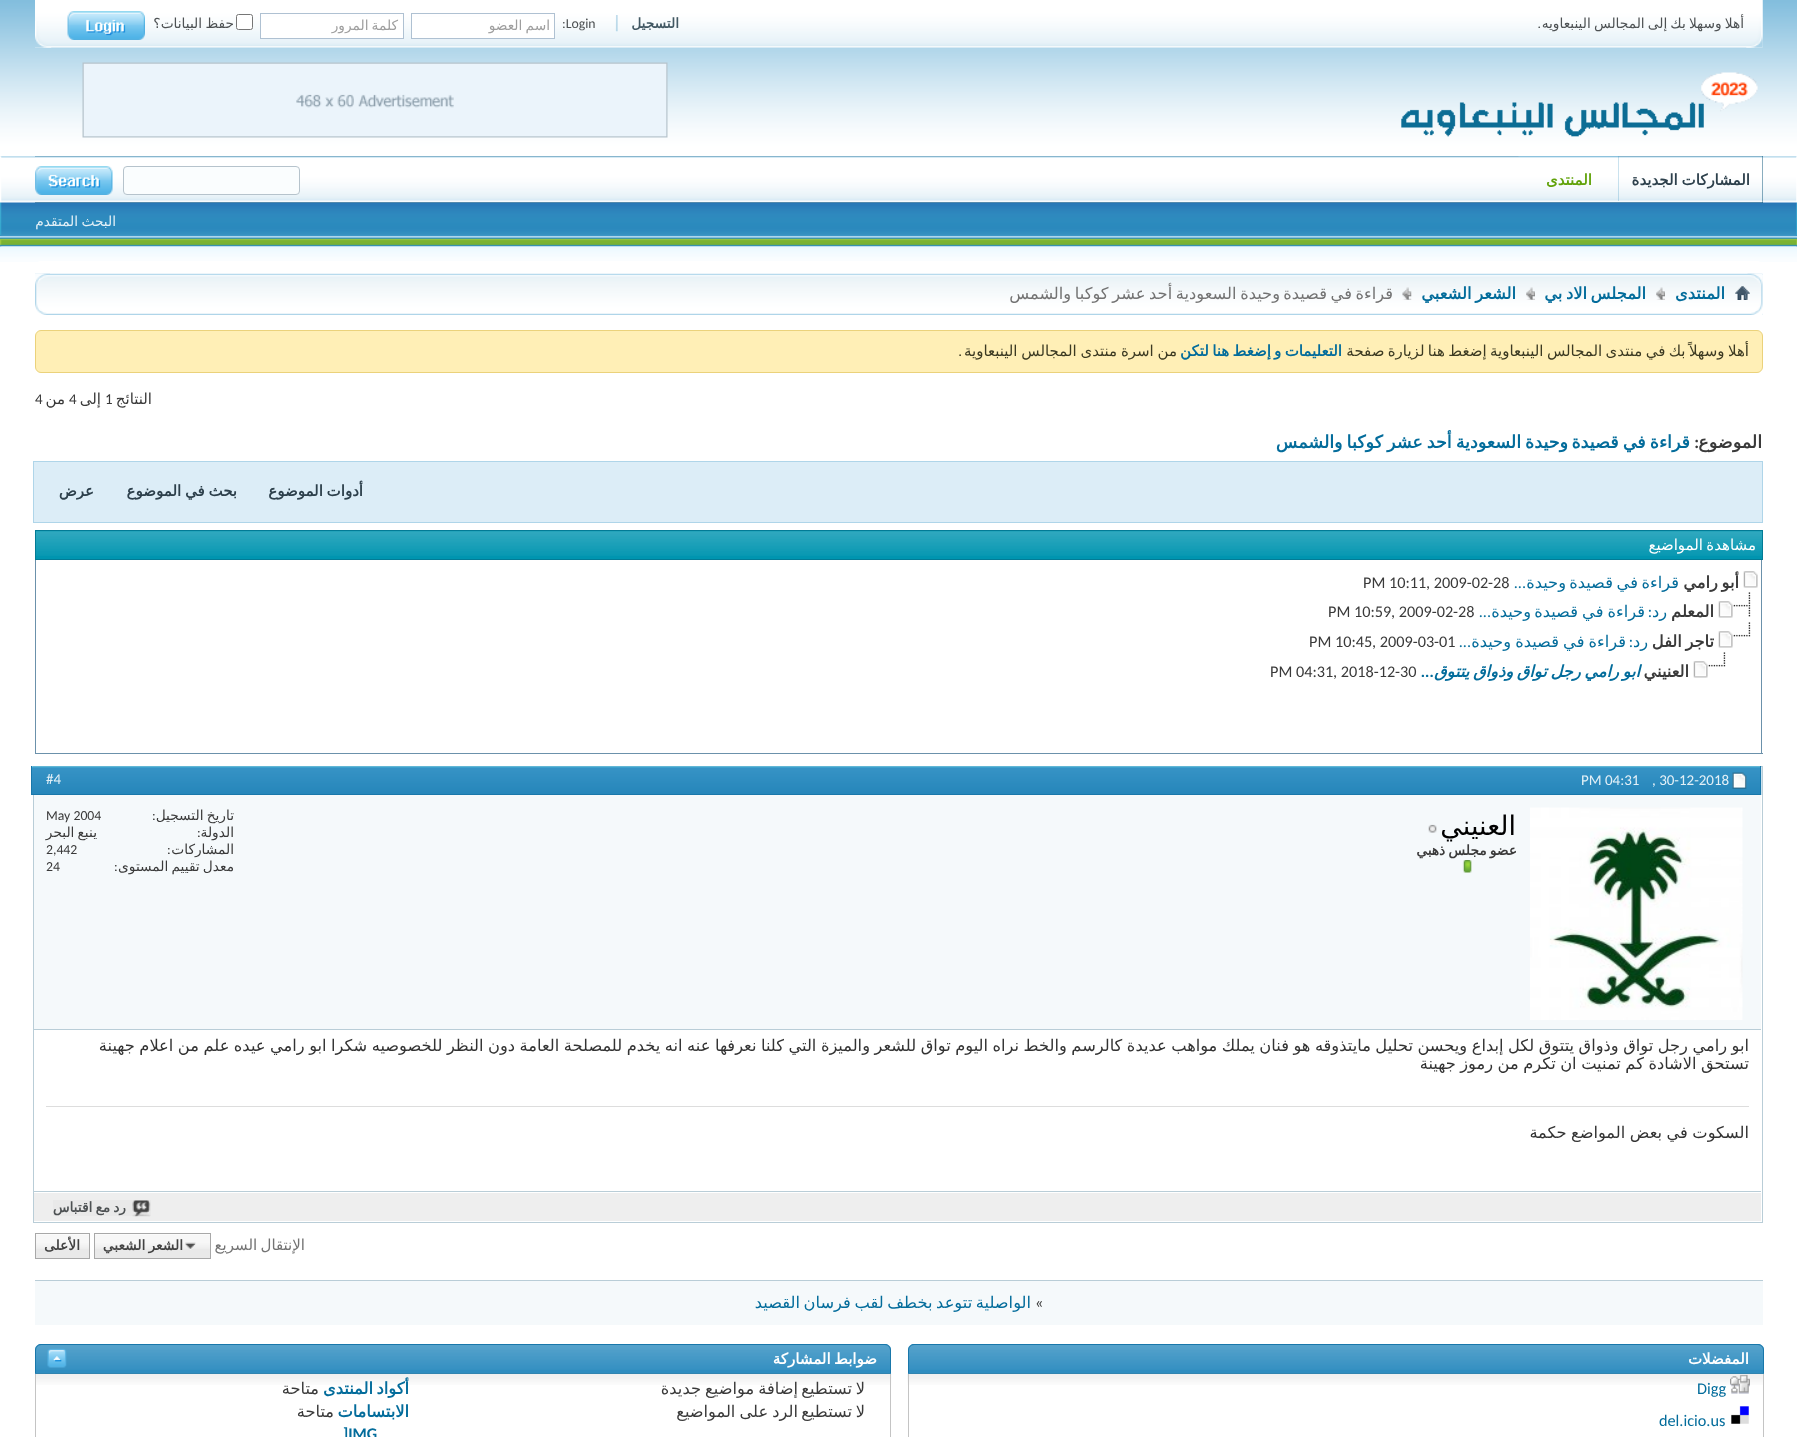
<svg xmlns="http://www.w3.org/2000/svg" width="1797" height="1437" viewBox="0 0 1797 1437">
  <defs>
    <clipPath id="clip1"><rect x="46" y="1036" width="1703" height="38"/></clipPath>
    <clipPath id="clip2"><rect x="46" y="1108" width="1703" height="35"/></clipPath>
  </defs>
  <rect width="100%" height="100%" fill="rgb(255,255,255)"/>
  <image x="0" y="0" width="1797" height="48" href="pic1.png"/>
  <image x="35" y="0" width="1728" height="48" href="pic2.png"/>
  <image x="35" y="21" width="17" height="27" href="pic3.png"/>
  <image x="1746" y="0" width="17" height="48" href="pic4.png"/>
  <text x="1744" y="28" word-spacing="-1.25" font-family="DejaVu Sans" font-size="13.75" direction="rtl" fill="rgb(77,81,83)">أهلا وسهلا بك إلى المجالس الينبعاويه</text>
  <text x="1541" y="28" font-family="Carlito" font-size="13.75" direction="rtl" fill="rgb(77,81,83)">.</text>
  <text x="679" y="28" font-family="DejaVu Sans" font-size="13.75" font-weight="bold" direction="rtl" fill="rgb(66,88,99)">التسجيل</text>
  <image x="615" y="15" width="3" height="17" href="pic5.png"/>
  <text x="562" y="28" font-family="Carlito" font-size="13.75" fill="rgb(77,81,83)">:Login</text>
  <rect x="412" y="17" width="142" height="21" fill="rgb(255,255,255)"/>
  <rect x="411.5" y="13.5" width="143" height="25" fill="none" stroke="rgb(175,193,210)"/>
  <text x="550" y="30" word-spacing="-1.25" font-family="DejaVu Sans" font-size="13.75" direction="rtl" fill="rgb(158,158,158)">اسم العضو</text>
  <rect x="261" y="17" width="142" height="21" fill="rgb(255,255,255)"/>
  <rect x="260.5" y="13.5" width="143" height="25" fill="none" stroke="rgb(175,193,210)"/>
  <text x="398" y="30" word-spacing="-1.25" font-family="DejaVu Sans" font-size="13.75" direction="rtl" fill="rgb(158,158,158)">كلمة المرور</text>
  <rect x="236.5" y="14.5" width="16" height="15" rx="2" fill="rgb(255,255,255)" stroke="rgb(118,118,118)"/>
  <text x="234" y="28" word-spacing="-1" font-family="DejaVu Sans" font-size="13.75" direction="rtl" fill="rgb(77,81,83)">حفظ البيانات؟</text>
  <image x="67" y="11" width="78" height="29" href="pic6.png"/>
  <image x="0" y="48" width="1797" height="109" href="pic7.png"/>
  <image x="1401" y="72" width="357" height="65" href="pic8.png"/>
  <image x="82" y="62" width="586" height="76" href="pic9.png"/>
  <image x="0" y="246" width="1797" height="16" href="pic17.png"/>
  <image x="0" y="156" width="1797" height="91" href="pic10.png"/>
  <image x="0" y="156" width="2" height="91" href="pic11.png"/>
  <image x="1796" y="156" width="1" height="91" href="pic12.png"/>
  <rect x="35" y="156" width="1728" height="47" fill="rgb(21,91,127)"/>
  <image x="35" y="156" width="1728" height="47" href="pic13.png"/>
  <rect x="1619" y="156" width="144" height="45" fill="rgb(21,91,127)"/>
  <image x="1618" y="156" width="145" height="46" href="pic14.png"/>
  <text x="1750" y="185" word-spacing="-1" font-family="DejaVu Sans" font-size="15" font-weight="bold" direction="rtl" fill="rgb(45,64,76)">المشاركات الجديدة</text>
  <rect x="1519" y="156" width="100" height="45" fill="rgb(41,136,185)"/>
  <image x="1518" y="156" width="101" height="45" href="pic15.png"/>
  <text x="1592" y="185" font-family="DejaVu Sans" font-size="15" font-weight="bold" direction="rtl" fill="rgb(97,162,10)">المنتدى</text>
  <rect x="123.5" y="166.5" width="176" height="28" rx="3.5" fill="rgb(250,253,254)" stroke="rgb(182,195,204)"/>
  <image x="35" y="166" width="78" height="29" href="pic16.png"/>
  <text x="116" y="226" word-spacing="-1" font-family="DejaVu Sans" font-size="13.75" direction="rtl" fill="rgb(227,240,247)">البحث المتقدم</text>
  <rect x="35" y="261" width="1728" height="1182" rx="6" fill="rgb(255,255,255)"/>
  <image x="35" y="273" width="1728" height="42" href="pic18.png"/>
  <image x="35" y="273" width="15" height="42" href="pic19.png"/>
  <image x="1747" y="273" width="16" height="42" href="pic20.png"/>
  <image x="1735" y="286" width="15" height="14" href="pic21.png"/>
  <image x="1656" y="287" width="9" height="13" href="pic22.png"/>
  <text x="1725" y="299" font-family="DejaVu Sans" font-size="16.25" font-weight="bold" direction="rtl" fill="rgb(3,108,155)">المنتدى</text>
  <image x="1526" y="287" width="9" height="13" href="pic23.png"/>
  <g font-family="DejaVu Sans" font-size="16.25" font-weight="bold" direction="rtl" fill="rgb(3,108,155)">
    <text x="1646" y="299">المجلس</text>
    <text x="1587" y="299" word-spacing="-1.5">الاد بي</text>
  </g>
  <image x="1402" y="287" width="10" height="13" href="pic24.png"/>
  <text x="1516" y="299" word-spacing="-1.5" font-family="DejaVu Sans" font-size="16.25" font-weight="bold" direction="rtl" fill="rgb(3,108,155)">الشعر الشعبي</text>
  <g font-family="DejaVu Sans" font-size="16.25" direction="rtl" fill="rgb(115,115,115)">
    <text x="1393" y="299" word-spacing="-1.5">قراءة في قصيدة</text>
    <text x="1280" y="299" word-spacing="-1.5">وحيدة السعودية أحد عشر كوكبا والشمس</text>
  </g>
  <rect x="35.5" y="330.5" width="1727" height="42" rx="5.5" fill="rgb(255,239,182)" stroke="rgb(235,210,123)"/>
  <text x="1749" y="356" word-spacing="-1.4" font-family="DejaVu Sans" font-size="15" direction="rtl" fill="rgb(60,58,34)">أهلا وسهلاً بك في منتدى المجالس الينبعاوية إضغط هنا لزيارة صفحة</text>
  <g font-family="DejaVu Sans" font-size="15" font-weight="bold" direction="rtl" fill="rgb(3,108,155)">
    <text x="1342" y="356" word-spacing="-1.4">التعليمات و</text>
    <text x="1271" y="356" word-spacing="-1.4">إضغط هنا لتكن</text>
  </g>
  <text x="1177" y="356" word-spacing="-1" font-family="DejaVu Sans" font-size="15" direction="rtl" fill="rgb(60,58,34)">من اسرة منتدى المجالس الينبعاوية</text>
  <text x="962" y="356" font-family="Carlito" font-size="15" direction="rtl" fill="rgb(60,58,34)">.</text>
  <text x="152" y="404" font-family="DejaVu Sans" font-size="15" direction="rtl" fill="rgb(58,58,58)">النتائج</text>
  <text x="105" y="404" font-family="Carlito" font-size="15" fill="rgb(58,58,58)">1</text>
  <text x="101" y="404" font-family="DejaVu Sans" font-size="15" direction="rtl" fill="rgb(58,58,58)">إلى</text>
  <text x="69" y="404" font-family="Carlito" font-size="15" fill="rgb(58,58,58)">4</text>
  <text x="65" y="404" font-family="DejaVu Sans" font-size="15" direction="rtl" fill="rgb(58,58,58)">من</text>
  <text x="35" y="404" font-family="Carlito" font-size="15" fill="rgb(58,58,58)">4</text>
  <text x="1762" y="448" font-family="DejaVu Sans" font-size="17.5" font-weight="bold" direction="rtl" fill="rgb(58,58,58)">الموضوع</text>
  <text x="1699" y="448" font-family="Carlito" font-size="17.5" font-weight="bold" direction="rtl" fill="rgb(58,58,58)">:</text>
  <g font-family="DejaVu Sans" font-size="17.5" font-weight="bold" direction="rtl" fill="rgb(3,108,155)">
    <text x="1690" y="448" word-spacing="-1.5">قراءة في قصيدة</text>
    <text x="1568" y="448" word-spacing="-1.5">وحيدة السعودية أحد عشر كوكبا والشمس</text>
  </g>
  <rect x="33.5" y="461.5" width="1729" height="61" fill="rgb(220,237,247)" stroke="rgb(175,213,233)"/>
  <g font-family="DejaVu Sans" font-size="15" font-weight="bold" direction="rtl" fill="rgb(45,64,76)">
    <text x="363" y="496" word-spacing="-1">أدوات الموضوع</text>
    <text x="237" y="496" word-spacing="-1">بحث في الموضوع</text>
    <text x="94" y="496">عرض</text>
  </g>
  <rect x="36" y="531" width="1726" height="28" fill="rgb(0,149,176)"/>
  <image x="36" y="531" width="1726" height="25" href="pic25.png"/>
  <rect x="35.5" y="530.5" width="1727" height="29" fill="none" stroke="rgb(2,123,149)"/>
  <text x="1756" y="550" word-spacing="-1.4" font-family="DejaVu Sans" font-size="15" direction="rtl" fill="rgb(255,255,255)">مشاهدة المواضيع</text>
  <rect x="1761" y="560" width="1" height="194" fill="rgb(107,145,171)"/>
  <rect x="35" y="753" width="1728" height="1" fill="rgb(107,145,171)"/>
  <rect x="35" y="560" width="1" height="194" fill="rgb(107,145,171)"/>
  <image x="1743" y="571" width="15" height="17" href="pic26.png"/>
  <text x="1739" y="588" word-spacing="-1.5" font-family="DejaVu Sans" font-size="16.25" font-weight="bold" direction="rtl" fill="rgb(58,58,58)">أبو رامي</text>
  <g font-family="DejaVu Sans" font-size="16.25" direction="rtl" fill="rgb(3,108,155)">
    <text x="1679" y="588" word-spacing="-1.5">قراءة في قصيدة</text>
    <text x="1566" y="588">وحيدة</text>
  </g>
  <text x="1526" y="588" font-family="Carlito" font-size="16.25" direction="rtl" fill="rgb(3,108,155)">...</text>
  <g font-family="Carlito" font-size="16.25" fill="rgb(58,58,58)">
    <text x="1426" y="588">, 2009-02-28</text>
    <text x="1363" y="588">PM 10:11</text>
  </g>
  <image x="1733" y="592" width="18" height="25" href="pic27.png"/>
  <image x="1718" y="601" width="15" height="17" href="pic26.png"/>
  <text x="1714" y="617" font-family="DejaVu Sans" font-size="16.25" font-weight="bold" direction="rtl" fill="rgb(58,58,58)">المعلم</text>
  <text x="1667" y="617" font-family="DejaVu Sans" font-size="16.25" direction="rtl" fill="rgb(3,108,155)">رد</text>
  <text x="1652" y="617" font-family="Carlito" font-size="16.25" direction="rtl" fill="rgb(3,108,155)">:</text>
  <g font-family="DejaVu Sans" font-size="16.25" direction="rtl" fill="rgb(3,108,155)">
    <text x="1645" y="617" word-spacing="-1">قراءة في قصيدة</text>
    <text x="1531" y="617">وحيدة</text>
  </g>
  <text x="1491" y="617" font-family="Carlito" font-size="16.25" direction="rtl" fill="rgb(3,108,155)">...</text>
  <g font-family="Carlito" font-size="16.25" fill="rgb(58,58,58)">
    <text x="1391" y="617">, 2009-02-28</text>
    <text x="1328" y="617">PM 10:59</text>
  </g>
  <image x="1733" y="622" width="18" height="15" href="pic28.png"/>
  <image x="1718" y="631" width="15" height="17" href="pic26.png"/>
  <text x="1714" y="647" word-spacing="-1.5" font-family="DejaVu Sans" font-size="16.25" font-weight="bold" direction="rtl" fill="rgb(58,58,58)">تاجر الفل</text>
  <text x="1648" y="647" font-family="DejaVu Sans" font-size="16.25" direction="rtl" fill="rgb(3,108,155)">رد</text>
  <text x="1633" y="647" font-family="Carlito" font-size="16.25" direction="rtl" fill="rgb(3,108,155)">:</text>
  <g font-family="DejaVu Sans" font-size="16.25" direction="rtl" fill="rgb(3,108,155)">
    <text x="1626" y="647" word-spacing="-1">قراءة في قصيدة</text>
    <text x="1511" y="647">وحيدة</text>
  </g>
  <text x="1471" y="647" font-family="Carlito" font-size="16.25" direction="rtl" fill="rgb(3,108,155)">...</text>
  <g font-family="Carlito" font-size="16.25" fill="rgb(58,58,58)">
    <text x="1372" y="647">, 2009-03-01</text>
    <text x="1309" y="647">PM 10:45</text>
  </g>
  <image x="1708" y="652" width="18" height="15" href="pic28.png"/>
  <image x="1693" y="661" width="15" height="17" href="pic26.png"/>
  <text x="1689" y="677" font-family="DejaVu Sans" font-size="16.25" font-weight="bold" direction="rtl" fill="rgb(58,58,58)">العنيني</text>
  <text x="1640" y="677" word-spacing="-1.5" font-family="DejaVu Sans" font-size="16.25" font-weight="bold" font-style="italic" direction="rtl" fill="rgb(3,108,155)">ابو رامي رجل تواق وذواق يتتوق</text>
  <text x="1434" y="677" font-family="Carlito" font-size="16.25" font-weight="bold" font-style="italic" direction="rtl" fill="rgb(3,108,155)">...</text>
  <g font-family="Carlito" font-size="16.25" fill="rgb(58,58,58)">
    <text x="1333" y="677">, 2018-12-30</text>
    <text x="1270" y="677">PM 04:31</text>
  </g>
  <rect x="33.5" y="766.5" width="1729" height="456" fill="none" stroke="rgb(185,205,215)"/>
  <image x="32" y="766" width="1730" height="29" href="pic29.png"/>
  <rect x="1760" y="766" width="1" height="29" fill="rgb(25,119,170)"/>
  <rect x="31" y="794" width="1730" height="1" fill="rgb(25,119,170)"/>
  <rect x="31" y="766" width="1" height="29" fill="rgb(25,119,170)"/>
  <image x="1732" y="772" width="15" height="17" href="pic30.png"/>
  <g font-family="Carlito" font-size="15" fill="rgb(227,240,247)">
    <text x="1652" y="785">, 30-12-2018</text>
    <text x="1581" y="785">PM 04:31</text>
    <text x="46" y="784">#4</text>
  </g>
  <rect x="34" y="795" width="1727" height="234" fill="rgb(245,249,251)"/>
  <rect x="34" y="1029" width="1727" height="1" fill="rgb(185,205,215)"/>
  <image x="1530" y="807" width="213" height="213" href="pic31.png"/>
  <text x="1516" y="835" font-family="DejaVu Sans" font-size="27" direction="rtl" fill="rgb(0,0,0)">العنيني</text>
  <image x="1428" y="824" width="9" height="9" href="pic32.png"/>
  <text x="1517" y="855" word-spacing="-1.25" font-family="DejaVu Sans" font-size="13.75" font-weight="bold" direction="rtl" fill="rgb(58,58,58)">عضو مجلس ذهبي</text>
  <image x="1462" y="860" width="10" height="13" href="pic33.png"/>
  <text x="234" y="820" word-spacing="-1.25" font-family="DejaVu Sans" font-size="13.75" direction="rtl" fill="rgb(58,58,58)">تاريخ التسجيل</text>
  <g font-family="Carlito" font-size="13.75" fill="rgb(58,58,58)">
    <text x="152" y="820">:</text>
    <text x="46" y="820">May 2004</text>
  </g>
  <text x="234" y="837" font-family="DejaVu Sans" font-size="13.75" direction="rtl" fill="rgb(58,58,58)">الدولة</text>
  <text x="197" y="837" font-family="Carlito" font-size="13.75" fill="rgb(58,58,58)">:</text>
  <g font-family="DejaVu Sans" font-size="13.75" direction="rtl" fill="rgb(58,58,58)">
    <text x="97" y="837" word-spacing="-1.25">ينبع البحر</text>
    <text x="234" y="854">المشاركات</text>
  </g>
  <g font-family="Carlito" font-size="13.75" fill="rgb(58,58,58)">
    <text x="167" y="854">:</text>
    <text x="46" y="854">2,442</text>
  </g>
  <text x="234" y="871" word-spacing="-1.25" font-family="DejaVu Sans" font-size="13.75" direction="rtl" fill="rgb(58,58,58)">معدل تقييم المستوى</text>
  <g font-family="Carlito" font-size="13.75" fill="rgb(58,58,58)">
    <text x="114" y="871">:</text>
    <text x="46" y="871">24</text>
  </g>
  <g clip-path="url(#clip1)">
    <g font-family="DejaVu Sans" font-size="16.25" direction="rtl" fill="rgb(51,51,51)">
      <text>
        <tspan x="1749" y="1051" word-spacing="-0.65">ابو رامي رجل تواق وذواق يتتوق لكل إبداع ويحسن تحليل مايتذوقه هو فنان يملك مواهب عديدة كالرسم والخط نراه اليوم تواق للشعر والميزة التي كلنا نعرفها عنه انه يخدم للمصلحة العامة دون النظر للخصوصيه شكرا ابو رامي عيده علم من اعلام جهينة</tspan>
        <tspan x="1749" y="1069" word-spacing="-0.65">تستحق الاشادة كم تمنيت ان تكرم من رموز جهينة</tspan>
      </text>
    </g>
  </g>
  <rect x="46" y="1106" width="1703" height="1" fill="rgb(221,221,221)"/>
  <g clip-path="url(#clip2)">
    <text x="1749" y="1138" word-spacing="-0.65" font-family="DejaVu Sans" font-size="16.25" direction="rtl" fill="rgb(51,51,51)">السكوت في بعض المواضع حكمة</text>
  </g>
  <rect x="34" y="1191" width="1727" height="1" fill="rgb(185,205,215)"/>
  <rect x="34" y="1193" width="1727" height="28" fill="rgb(238,238,238)"/>
  <rect x="53" y="1200" width="98" height="16" fill="rgb(233,233,233)"/>
  <image x="132" y="1200" width="19" height="17" href="pic34.png"/>
  <text x="126" y="1212" word-spacing="-1.25" font-family="DejaVu Sans" font-size="13.75" font-weight="bold" direction="rtl" fill="rgb(77,81,83)">رد مع اقتباس</text>
  <rect x="95" y="1234" width="115" height="24" fill="rgb(233,233,233)"/>
  <image x="95" y="1234" width="115" height="15" href="pic35.png"/>
  <rect x="36" y="1234" width="53" height="24" fill="rgb(233,233,233)"/>
  <image x="36" y="1234" width="53" height="15" href="pic36.png"/>
  <text x="305" y="1250" word-spacing="-1.4" font-family="DejaVu Sans" font-size="15" direction="rtl" fill="rgb(115,115,115)">الإنتقال السريع</text>
  <rect x="94.5" y="1233.5" width="116" height="25" fill="none" stroke="rgb(168,168,168)"/>
  <image x="185" y="1242" width="11" height="8" href="pic37.png"/>
  <text x="183" y="1250" word-spacing="-1.25" font-family="DejaVu Sans" font-size="13.75" font-weight="bold" direction="rtl" fill="rgb(66,66,66)">الشعر الشعبي</text>
  <rect x="35.5" y="1233.5" width="54" height="25" fill="none" stroke="rgb(168,168,168)"/>
  <text x="80" y="1250" font-family="DejaVu Sans" font-size="13.75" font-weight="bold" direction="rtl" fill="rgb(66,66,66)">الأعلى</text>
  <rect x="35" y="1281" width="1728" height="44" fill="rgb(245,249,251)"/>
  <rect x="35" y="1280" width="1728" height="1" fill="rgb(185,205,215)"/>
  <text x="1035" y="1308" font-family="Carlito" font-size="16.25" fill="rgb(58,58,58)">«</text>
  <text x="1031" y="1308" word-spacing="-1.5" font-family="DejaVu Sans" font-size="16.25" direction="rtl" fill="rgb(3,108,155)">الواصلية تتوعد بخطف لقب فرسان القصيد</text>
  <path d="M914 1344H1758C1761.5 1344 1764 1346.5 1764 1350V1374H908V1350C908 1346.5 910.5 1344 914 1344Z" fill="rgb(47,141,192)"/>
  <image x="908" y="1345" width="856" height="25" href="pic38.png"/>
  <path d="M914 1344.5H1758C1761 1344.5 1763.5 1347 1763.5 1350V1373.5H908.5V1350C908.5 1347 911 1344.5 914 1344.5Z" fill="none" stroke="rgb(25,119,170)"/>
  <text x="1749" y="1364" font-family="DejaVu Sans" font-size="15" font-weight="bold" direction="rtl" fill="rgb(255,255,255)">المفضلات</text>
  <image x="907" y="1373" width="857" height="12" href="pic39.png"/>
  <rect x="1763" y="1374" width="1" height="63" fill="rgb(196,196,196)"/>
  <rect x="908" y="1374" width="1" height="63" fill="rgb(196,196,196)"/>
  <image x="1730" y="1374" width="20" height="20" href="pic40.png"/>
  <text x="1697" y="1394" font-family="Carlito" font-size="16.25" fill="rgb(3,108,155)">Digg</text>
  <image x="1731" y="1406" width="18" height="18" href="pic41.png"/>
  <text x="1659" y="1426" font-family="Carlito" font-size="16.25" fill="rgb(3,108,155)">del.icio.us</text>
  <path d="M41 1344H885C888.5 1344 891 1346.5 891 1350V1374H35V1350C35 1346.5 37.5 1344 41 1344Z" fill="rgb(47,141,192)"/>
  <image x="35" y="1345" width="856" height="25" href="pic42.png"/>
  <path d="M41 1344.5H885C888 1344.5 890.5 1347 890.5 1350V1373.5H35.5V1350C35.5 1347 38 1344.5 41 1344.5Z" fill="none" stroke="rgb(25,119,170)"/>
  <text x="877" y="1364" word-spacing="-1.4" font-family="DejaVu Sans" font-size="15" font-weight="bold" direction="rtl" fill="rgb(255,255,255)">ضوابط المشاركة</text>
  <image x="47" y="1348" width="20" height="20" href="pic43.png"/>
  <image x="35" y="1373" width="857" height="12" href="pic44.png"/>
  <rect x="890" y="1374" width="1" height="63" fill="rgb(196,196,196)"/>
  <rect x="35" y="1374" width="1" height="63" fill="rgb(196,196,196)"/>
  <g font-family="DejaVu Sans" font-size="16.25" direction="rtl" fill="rgb(58,58,58)">
    <text x="865" y="1394" word-spacing="-1.5">لا تستطيع</text>
    <text x="798" y="1394" word-spacing="-1">إضافة مواضيع جديدة</text>
    <text x="865" y="1417" word-spacing="-1.5">لا تستطيع</text>
    <text x="798" y="1417" word-spacing="-1">الرد على المواضيع</text>
  </g>
  <text x="409" y="1394" word-spacing="-1.5" font-family="DejaVu Sans" font-size="16.25" font-weight="bold" direction="rtl" fill="rgb(3,108,155)">أكواد المنتدى</text>
  <text x="319" y="1394" font-family="DejaVu Sans" font-size="16.25" direction="rtl" fill="rgb(58,58,58)">متاحة</text>
  <text x="409" y="1417" font-family="DejaVu Sans" font-size="16.25" font-weight="bold" direction="rtl" fill="rgb(3,108,155)">الابتسامات</text>
  <text x="334" y="1417" font-family="DejaVu Sans" font-size="16.25" direction="rtl" fill="rgb(58,58,58)">متاحة</text>
  <text x="343" y="1439" font-family="Carlito" font-size="16.25" font-weight="bold" fill="rgb(3,108,155)">]IMG</text>
</svg>
